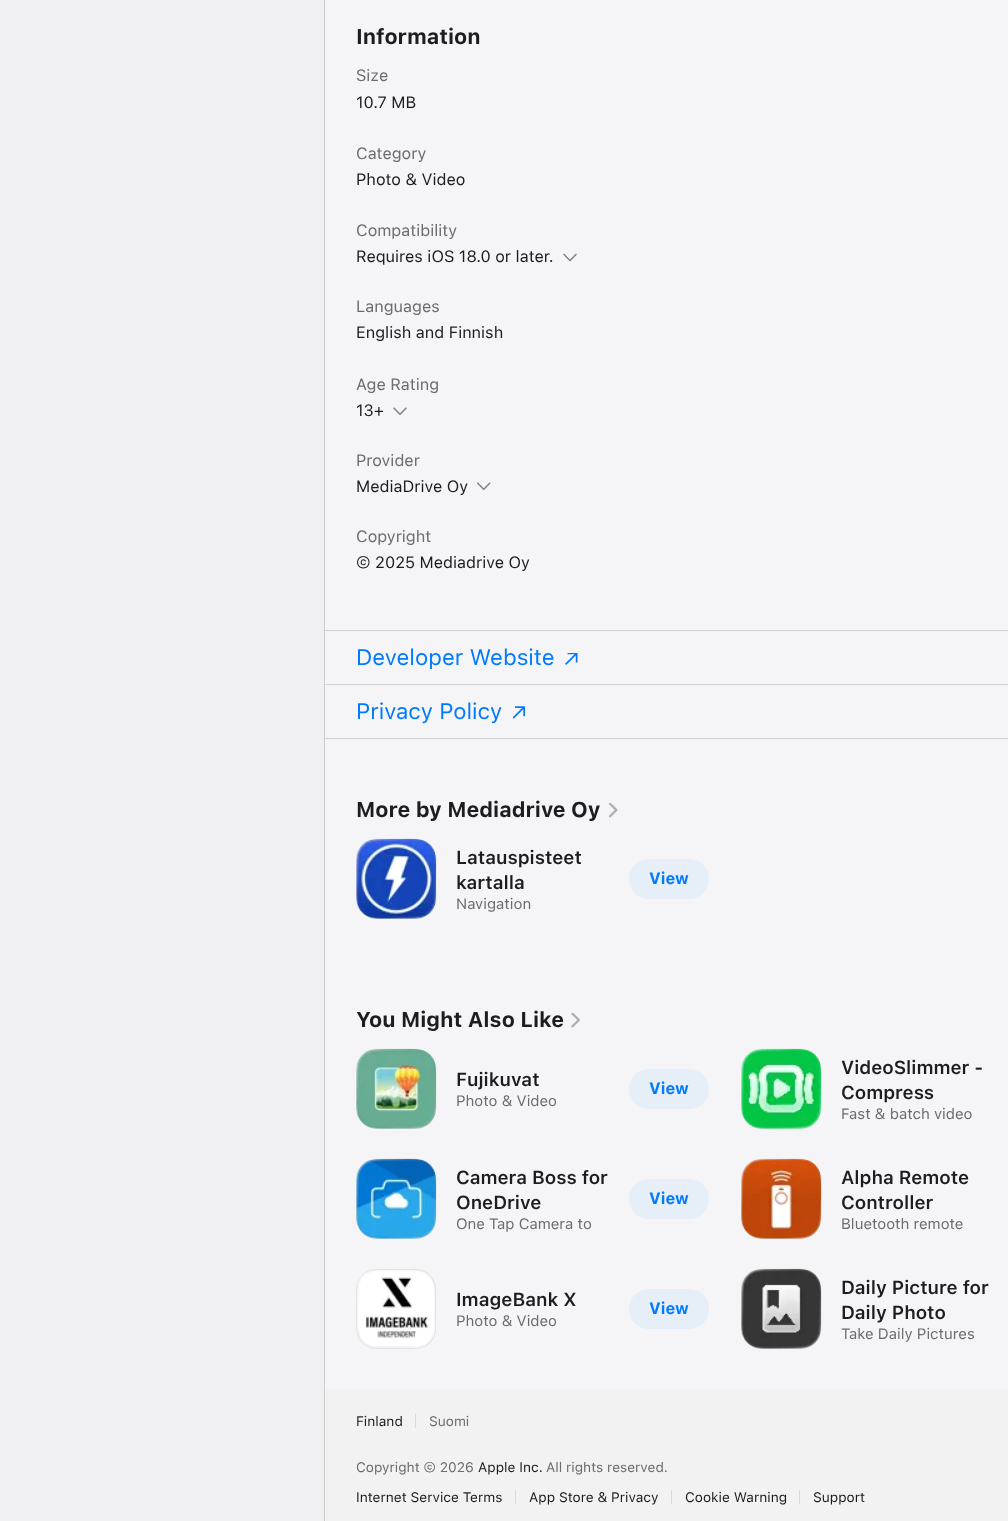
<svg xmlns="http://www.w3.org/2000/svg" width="1008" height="1521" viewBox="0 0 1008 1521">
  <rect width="100%" height="100%" fill="rgb(245,245,247)"/>
  <rect x="0" y="0" width="324" height="1521" fill="rgb(240,240,242)"/>
  <rect x="324" y="0" width="1" height="1521" fill="rgb(204,204,206)"/>
  <text x="356" y="44" font-family="SF" font-size="21.25" font-weight="bold" fill="rgb(29,29,30)">Information</text>
  <text x="356" y="81" font-family="SF" font-size="16.25" fill="rgb(108,108,109)">Size</text>
  <text x="356" y="108" font-family="SF" font-size="16.25" fill="rgb(29,29,30)">10.7 MB</text>
  <text x="356" y="159" font-family="SF" font-size="16.25" fill="rgb(108,108,109)">Category</text>
  <text x="356" y="185" font-family="SF" font-size="16.25" fill="rgb(29,29,30)">Photo &amp; Video</text>
  <text x="356" y="236" font-family="SF" font-size="16.25" fill="rgb(108,108,109)">Compatibility</text>
  <text x="356" y="262" font-family="SF" font-size="16.25" fill="rgb(29,29,30)">Requires iOS 18.0 or later.</text>
  <image x="563" y="253" width="14" height="9" href="pic1.png"/>
  <text x="356" y="312" font-family="SF" font-size="16.25" fill="rgb(108,108,109)">Languages</text>
  <text x="356" y="338" font-family="SF" font-size="16.25" fill="rgb(29,29,30)">English and Finnish</text>
  <text x="356" y="390" font-family="SF" font-size="16.25" fill="rgb(108,108,109)">Age Rating</text>
  <text x="356" y="416" font-family="SF" font-size="16.25" fill="rgb(29,29,30)">13+</text>
  <image x="393" y="407" width="14" height="8" href="pic2.png"/>
  <text x="356" y="466" font-family="SF" font-size="16.25" fill="rgb(108,108,109)">Provider</text>
  <text x="356" y="492" font-family="SF" font-size="16.25" fill="rgb(29,29,30)">MediaDrive Oy</text>
  <image x="477" y="482" width="14" height="8" href="pic3.png"/>
  <text x="356" y="542" font-family="SF" font-size="16.25" fill="rgb(108,108,109)">Copyright</text>
  <text x="356" y="568" font-family="SF" font-size="16.25" fill="rgb(29,29,30)">© 2025 Mediadrive Oy</text>
  <rect x="325" y="630" width="683" height="1" fill="rgb(209,209,214)"/>
  <rect x="325" y="684" width="683" height="1" fill="rgb(209,209,214)"/>
  <text x="356" y="665" font-family="'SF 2'" font-size="22.5" fill="rgb(0,122,255)">Developer Website</text>
  <image x="565" y="653" width="13" height="12" href="pic4.png"/>
  <rect x="325" y="738" width="683" height="1" fill="rgb(209,209,214)"/>
  <text x="356" y="719" font-family="'SF 2'" font-size="22.5" fill="rgb(0,122,255)">Privacy Policy</text>
  <image x="513" y="706" width="12" height="13" href="pic5.png"/>
  <text x="356" y="817" font-family="SF" font-size="21.25" font-weight="bold" fill="rgb(29,29,30)">More by Mediadrive Oy</text>
  <image x="609" y="803" width="9" height="15" href="pic6.png"/>
  <image x="356" y="838" width="81" height="81" href="pic7.png"/>
  <rect x="356.5" y="839.5" width="79" height="79" rx="19.5" fill="none" stroke="rgba(128,128,128,0.1)"/>
  <g font-family="SF" font-size="18.75" font-weight="600" fill="rgb(29,29,30)">
    <text>
      <tspan x="456" y="864">Latauspisteet</tspan>
      <tspan x="456" y="889">kartalla</tspan>
    </text>
  </g>
  <text x="456" y="909" font-family="SF" font-size="15" fill="rgb(108,108,109)">Navigation</text>
  <rect x="629" y="859" width="80" height="40" rx="20" fill="rgb(230,238,247)"/>
  <text x="649" y="884" font-family="SF" font-size="16.25" font-weight="bold" fill="rgb(0,122,255)">View</text>
  <text x="356" y="1027" font-family="SF" font-size="21.25" font-weight="bold" fill="rgb(29,29,30)">You Might Also Like</text>
  <image x="571" y="1013" width="9" height="15" href="pic8.png"/>
  <image x="356" y="1048" width="81" height="81" href="pic9.png"/>
  <rect x="356.5" y="1049.5" width="79" height="79" rx="19.5" fill="none" stroke="rgba(128,128,128,0.1)"/>
  <text x="456" y="1086" font-family="SF" font-size="18.75" font-weight="600" fill="rgb(29,29,30)">Fujikuvat</text>
  <text x="456" y="1106" font-family="SF" font-size="15" fill="rgb(108,108,109)">Photo &amp; Video</text>
  <rect x="629" y="1069" width="80" height="40" rx="20" fill="rgb(230,238,247)"/>
  <text x="649" y="1094" font-family="SF" font-size="16.25" font-weight="bold" fill="rgb(0,122,255)">View</text>
  <image x="741" y="1048" width="81" height="81" href="pic10.png"/>
  <rect x="741.5" y="1049.5" width="79" height="79" rx="19.5" fill="none" stroke="rgba(128,128,128,0.1)"/>
  <g font-family="SF" font-size="18.75" font-weight="600" fill="rgb(29,29,30)">
    <text>
      <tspan x="841" y="1074">VideoSlimmer -</tspan>
      <tspan x="841" y="1099">Compress</tspan>
    </text>
  </g>
  <text x="841" y="1119" font-family="SF" font-size="15" fill="rgb(108,108,109)">Fast &amp; batch video</text>
  <image x="356" y="1158" width="81" height="81" href="pic11.png"/>
  <rect x="356.5" y="1159.5" width="79" height="79" rx="19.5" fill="none" stroke="rgba(128,128,128,0.1)"/>
  <g font-family="SF" font-size="18.75" font-weight="600" fill="rgb(29,29,30)">
    <text>
      <tspan x="456" y="1184">Camera Boss for</tspan>
      <tspan x="456" y="1209">OneDrive</tspan>
    </text>
  </g>
  <text x="456" y="1229" font-family="SF" font-size="15" fill="rgb(108,108,109)">One Tap Camera to</text>
  <rect x="629" y="1179" width="80" height="40" rx="20" fill="rgb(230,238,247)"/>
  <text x="649" y="1204" font-family="SF" font-size="16.25" font-weight="bold" fill="rgb(0,122,255)">View</text>
  <image x="741" y="1158" width="81" height="81" href="pic12.png"/>
  <rect x="741.5" y="1159.5" width="79" height="79" rx="19.5" fill="none" stroke="rgba(128,128,128,0.1)"/>
  <g font-family="SF" font-size="18.75" font-weight="600" fill="rgb(29,29,30)">
    <text>
      <tspan x="841" y="1184">Alpha Remote</tspan>
      <tspan x="841" y="1209">Controller</tspan>
    </text>
  </g>
  <text x="841" y="1229" font-family="SF" font-size="15" fill="rgb(108,108,109)">Bluetooth remote</text>
  <image x="356" y="1269" width="80" height="80" href="pic13.png"/>
  <rect x="356.5" y="1269.5" width="79" height="79" rx="19.5" fill="none" stroke="rgba(128,128,128,0.1)"/>
  <text x="456" y="1306" font-family="SF" font-size="18.75" font-weight="600" fill="rgb(29,29,30)">ImageBank X</text>
  <text x="456" y="1326" font-family="SF" font-size="15" fill="rgb(108,108,109)">Photo &amp; Video</text>
  <rect x="629" y="1289" width="80" height="40" rx="20" fill="rgb(230,238,247)"/>
  <text x="649" y="1314" font-family="SF" font-size="16.25" font-weight="bold" fill="rgb(0,122,255)">View</text>
  <image x="741" y="1268" width="81" height="81" href="pic14.png"/>
  <rect x="741.5" y="1269.5" width="79" height="79" rx="19.5" fill="none" stroke="rgba(128,128,128,0.1)"/>
  <g font-family="SF" font-size="18.75" font-weight="600" fill="rgb(29,29,30)">
    <text>
      <tspan x="841" y="1294">Daily Picture for</tspan>
      <tspan x="841" y="1319">Daily Photo</tspan>
    </text>
  </g>
  <text x="841" y="1339" font-family="SF" font-size="15" fill="rgb(108,108,109)">Take Daily Pictures</text>
  <rect x="325" y="1389" width="683" height="132" fill="rgb(242,242,242)"/>
  <text x="356" y="1426" font-family="SF" font-size="13.75" fill="rgb(29,29,30)">Finland</text>
  <rect x="415" y="1414" width="1" height="14" fill="rgb(218,218,218)"/>
  <g font-family="SF" font-size="13.75" fill="rgb(108,108,109)">
    <text x="429" y="1426">Suomi</text>
    <text x="356" y="1472">Copyright © 2026</text>
  </g>
  <text x="478" y="1472" font-family="SF" font-size="13.75" fill="rgb(29,29,30)">Apple Inc.</text>
  <text x="546" y="1472" font-family="SF" font-size="13.75" fill="rgb(108,108,109)">All rights reserved.</text>
  <text x="356" y="1502" font-family="SF" font-size="13.75" fill="rgb(29,29,30)">Internet Service Terms</text>
  <rect x="515" y="1490" width="1" height="14" fill="rgb(218,218,218)"/>
  <text x="529" y="1502" font-family="SF" font-size="13.75" fill="rgb(29,29,30)">App Store &amp; Privacy</text>
  <rect x="671" y="1490" width="1" height="14" fill="rgb(218,218,218)"/>
  <text x="685" y="1502" font-family="SF" font-size="13.75" fill="rgb(29,29,30)">Cookie Warning</text>
  <rect x="799" y="1490" width="1" height="14" fill="rgb(218,218,218)"/>
  <text x="813" y="1502" font-family="SF" font-size="13.75" fill="rgb(29,29,30)">Support</text>
</svg>
